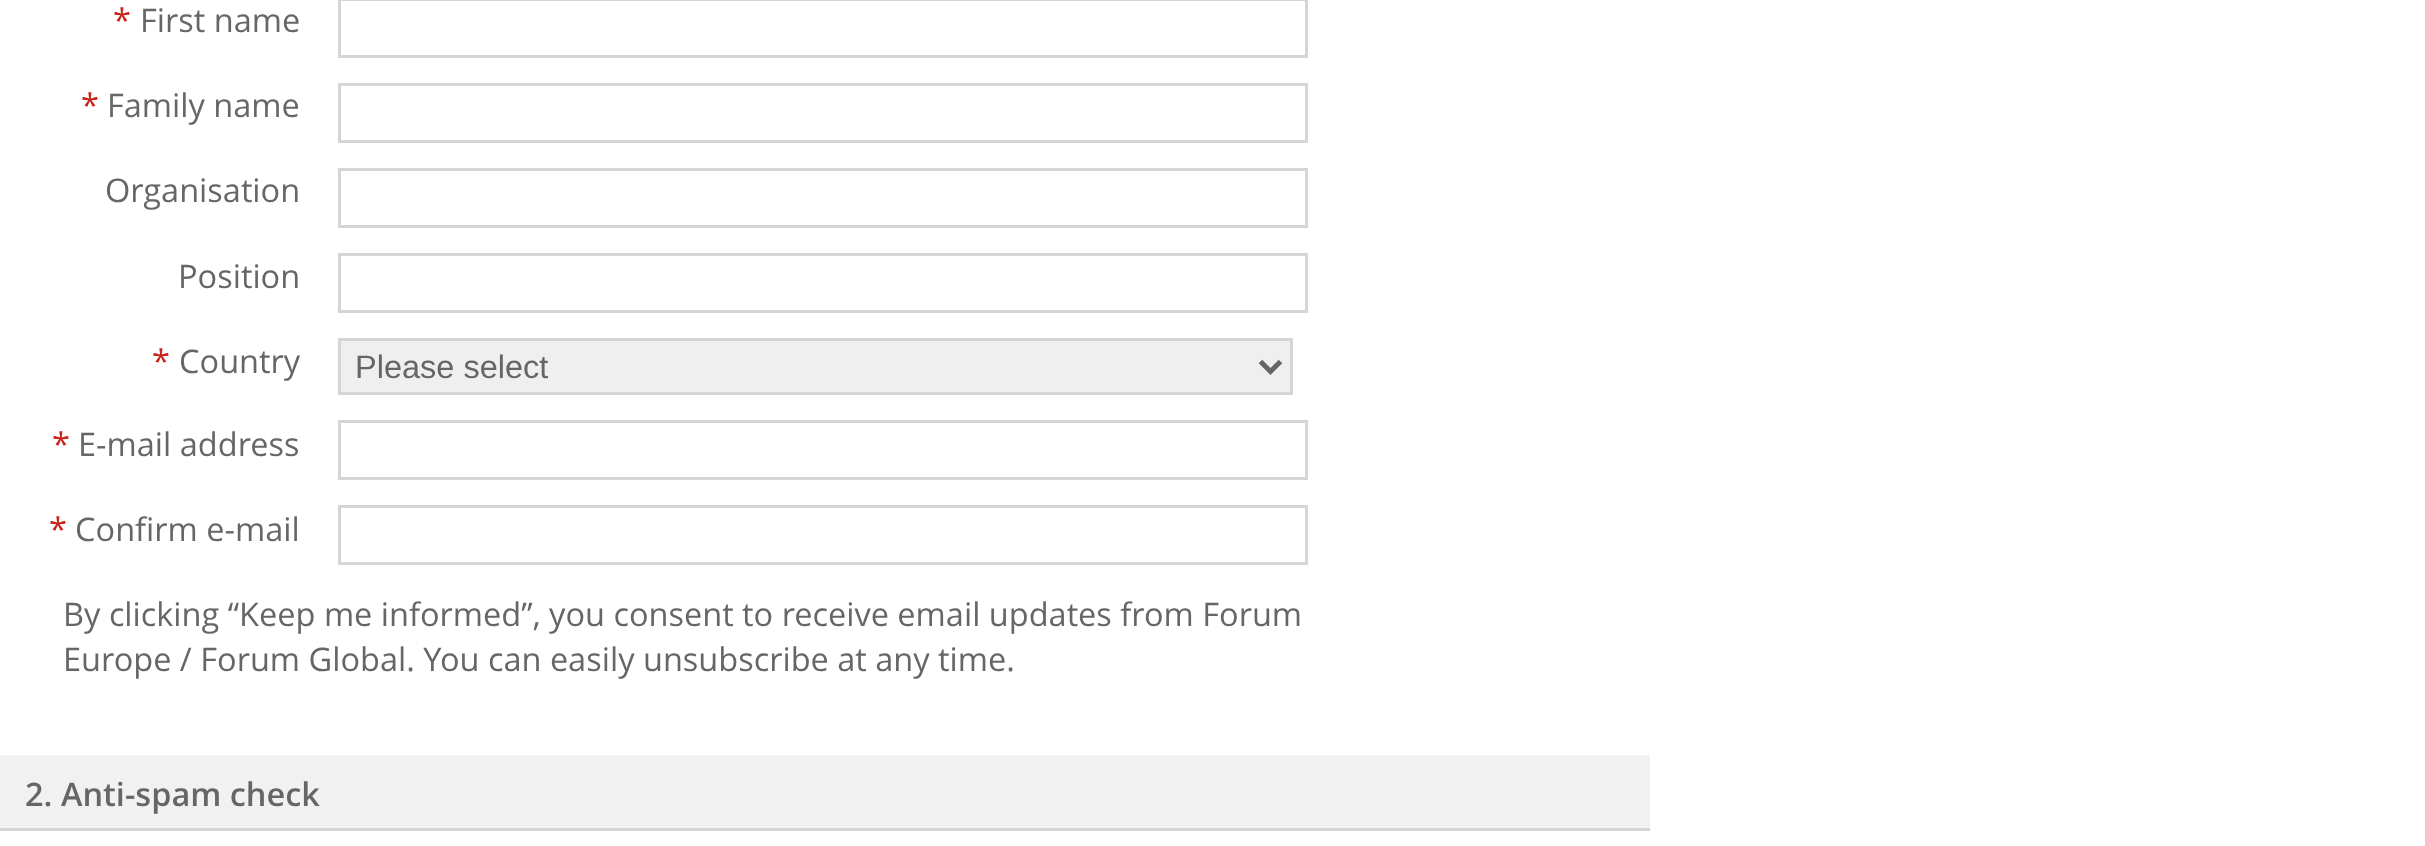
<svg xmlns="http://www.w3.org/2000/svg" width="2425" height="846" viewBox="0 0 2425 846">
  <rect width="100%" height="100%" fill="rgb(255,255,255)"/>
  <text x="113" y="32" font-family="Open Sans" font-size="32.5" fill="rgb(200,35,29)">*</text>
  <text x="140" y="32" font-family="Open Sans" font-size="32.5" fill="rgb(102,102,102)">First name</text>
  <rect x="339.5" y="-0.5" width="967" height="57" fill="none" stroke="rgb(213,213,213)" stroke-width="3"/>
  <text x="81" y="117" font-family="Open Sans" font-size="32.5" fill="rgb(200,35,29)">*</text>
  <text x="107" y="117" font-family="Open Sans" font-size="32.5" fill="rgb(102,102,102)">Family name</text>
  <rect x="339.5" y="84.5" width="967" height="57" fill="none" stroke="rgb(213,213,213)" stroke-width="3"/>
  <text x="105" y="202" font-family="Open Sans" font-size="32.5" fill="rgb(102,102,102)">Organisation</text>
  <rect x="339.5" y="169.5" width="967" height="57" fill="none" stroke="rgb(213,213,213)" stroke-width="3"/>
  <text x="178" y="288" font-family="Open Sans" font-size="32.5" fill="rgb(102,102,102)">Position</text>
  <rect x="339.5" y="254.5" width="967" height="57" fill="none" stroke="rgb(213,213,213)" stroke-width="3"/>
  <text x="152" y="373" font-family="Open Sans" font-size="32.5" fill="rgb(200,35,29)">*</text>
  <text x="179" y="373" font-family="Open Sans" font-size="32.5" fill="rgb(102,102,102)">Country</text>
  <rect x="339.5" y="339.5" width="952" height="54" fill="rgb(239,239,239)" stroke="rgb(213,213,213)" stroke-width="3"/>
  <path d="M1260.5 361.5L1270.5 371.5L1280.5 361.5" fill="none" stroke="rgb(102,102,102)" stroke-width="5"/>
  <text x="355" y="378" font-family="Liberation Sans" font-size="32.5" fill="rgb(102,102,102)">Please select</text>
  <text x="52" y="456" font-family="Open Sans" font-size="32.5" fill="rgb(200,35,29)">*</text>
  <text x="78" y="456" font-family="Open Sans" font-size="32.5" fill="rgb(102,102,102)">E-mail address</text>
  <rect x="339.5" y="421.5" width="967" height="57" fill="none" stroke="rgb(213,213,213)" stroke-width="3"/>
  <text x="49" y="541" font-family="Open Sans" font-size="32.5" fill="rgb(200,35,29)">*</text>
  <text x="75" y="541" font-family="Open Sans" font-size="32.5" fill="rgb(102,102,102)">Confirm e-mail</text>
  <rect x="339.5" y="506.5" width="967" height="57" fill="none" stroke="rgb(213,213,213)" stroke-width="3"/>
  <g font-family="Open Sans" font-size="32.5" fill="rgb(102,102,102)">
    <text>
      <tspan x="63" y="626">By clicking “Keep me informed”, you consent to receive email updates from Forum</tspan>
      <tspan x="63" y="671">Europe / Forum Global. You can easily unsubscribe at any time.</tspan>
    </text>
  </g>
  <rect x="0" y="755" width="1650" height="73" fill="rgb(241,241,241)"/>
  <rect x="0" y="828" width="1650" height="3" fill="rgb(213,213,213)"/>
  <text x="25" y="806" font-family="Open Sans" font-size="32.5" font-weight="600" fill="rgb(102,102,102)">2. Anti-spam check</text>
</svg>
